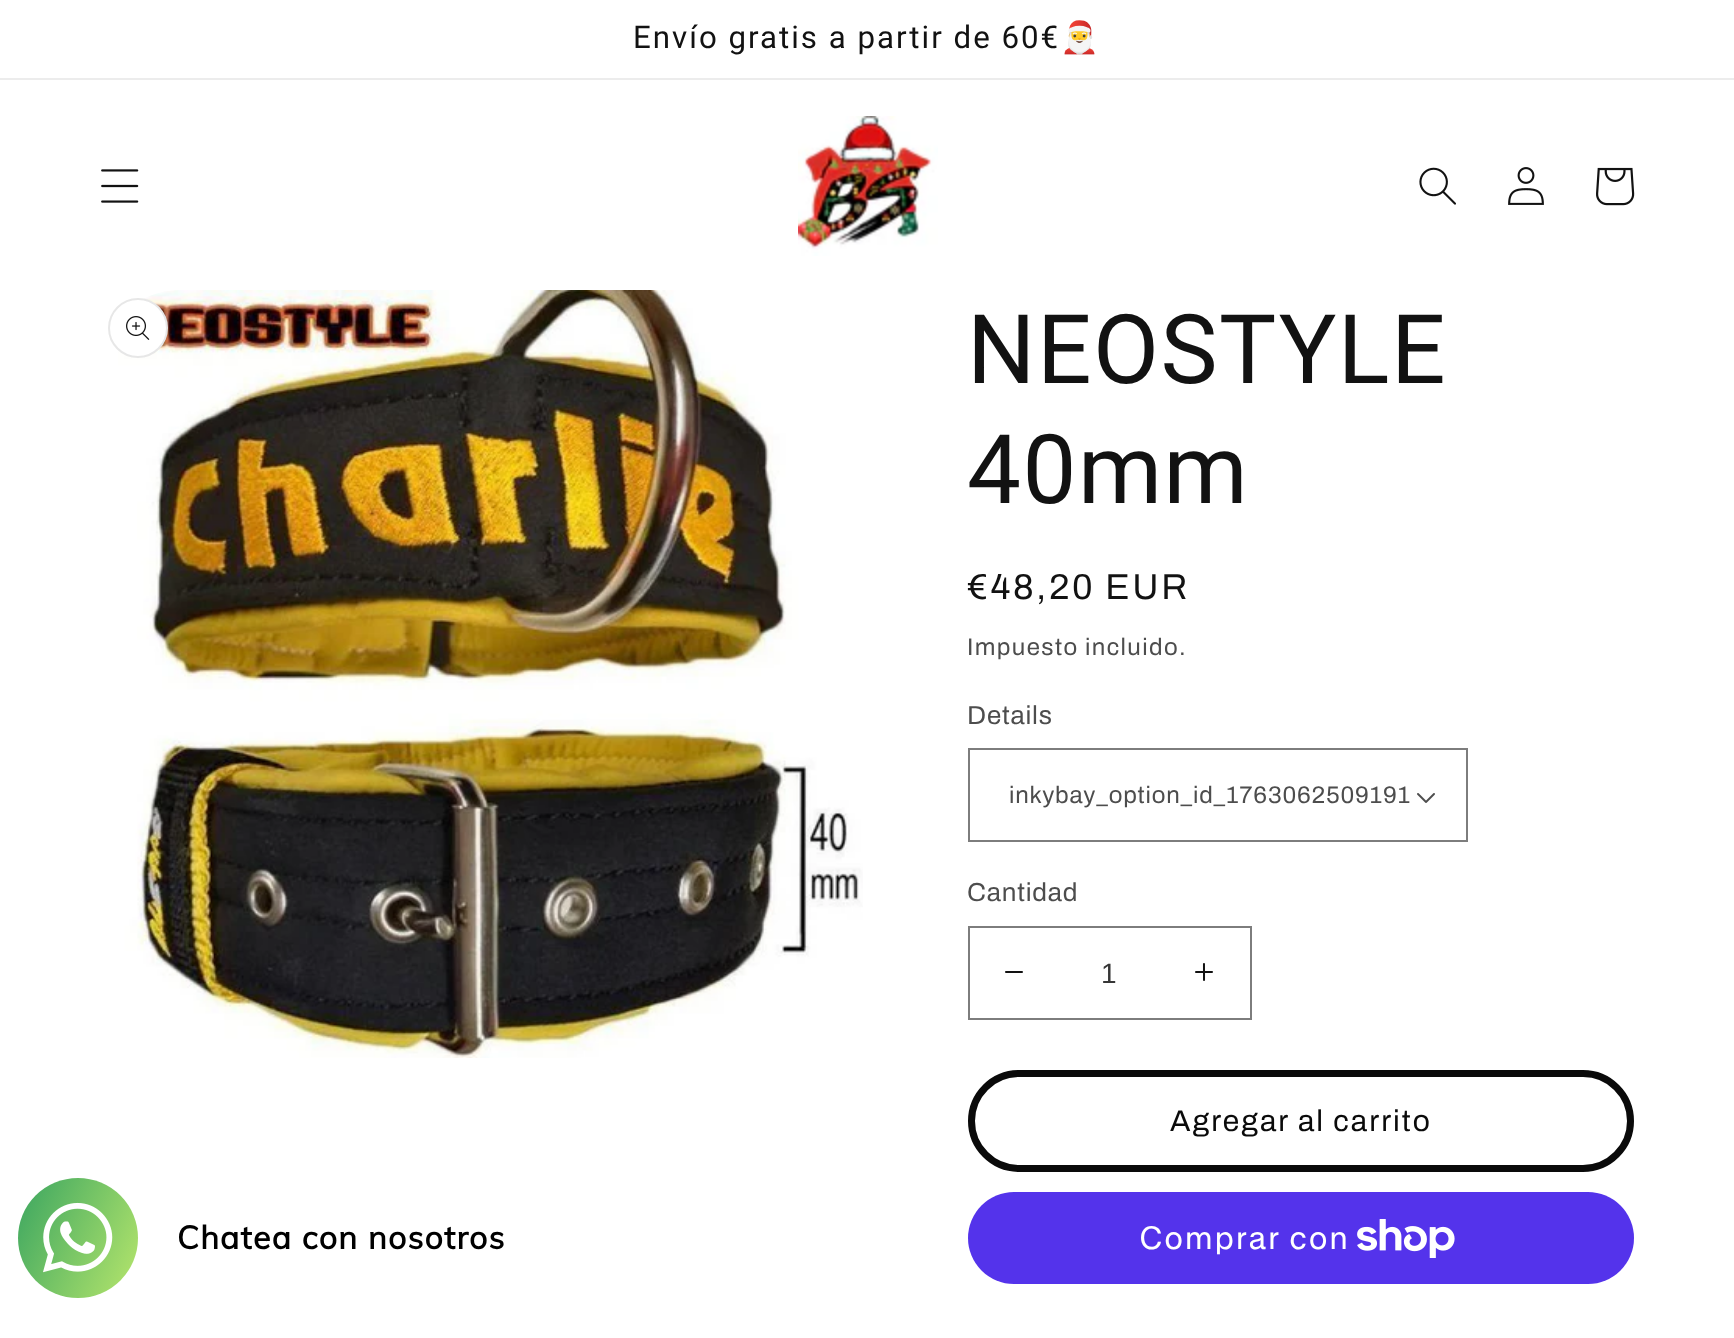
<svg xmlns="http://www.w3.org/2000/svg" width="1734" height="1338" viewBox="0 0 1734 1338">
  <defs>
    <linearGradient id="g1" gradientUnits="userSpaceOnUse" x1="5.7" y1="1204" x2="150" y2="1272"><stop offset="0" stop-color="rgb(58,165,96)"/><stop offset="1" stop-color="rgb(183,230,108)"/></linearGradient>
  </defs>
  <rect width="100%" height="100%" fill="rgb(255,255,255)"/>
  <rect x="0" y="78" width="1734" height="2" fill="rgb(236,236,236)"/>
  <text x="633" y="48" font-family="Roboto" font-size="31.25" letter-spacing="2" fill="rgb(18,18,18)">Envío gratis a partir de 60€</text>
  <text x="1060" y="48" font-family="Noto Color Emoji" font-size="31.25" letter-spacing="2" fill="rgb(18,18,18)">🎅</text>
  <image x="101" y="169" width="38" height="34" href="pic1.png"/>
  <image x="798" y="116" width="140" height="140" href="pic2.png"/>
  <image x="1419" y="167" width="37" height="38" href="pic3.png"/>
  <image x="1508" y="167" width="36" height="38" href="pic4.png"/>
  <image x="1596" y="167" width="39" height="39" href="pic5.png"/>
  <circle cx="78" cy="1238" r="60" fill="url(#g1)"/>
  <image x="43" y="1202" width="70" height="71" href="pic6.png"/>
  <text x="177" y="1249" font-family="Muli" font-size="32" font-weight="bold" letter-spacing="1.25" fill="rgb(0,0,0)">Chatea con nosotros</text>
  <image x="118" y="290" width="745" height="768" href="pic7.png"/>
  <circle cx="138" cy="328" r="30" fill="rgb(255,255,255)"/>
  <circle cx="138" cy="328" r="29" fill="none" stroke="rgba(18,18,18,0.1)" stroke-width="2"/>
  <image x="126" y="316" width="24" height="24" href="pic8.png"/>
  <g font-family="Roboto" font-size="96" letter-spacing="1.5" fill="rgb(18,18,18)">
    <text>
      <tspan x="967" y="383">NEOSTYLE</tspan>
      <tspan x="967" y="503">40mm</tspan>
    </text>
  </g>
  <text x="967" y="599" font-family="Archivo" font-size="36" letter-spacing="2.6" fill="rgb(18,18,18)">€48,20 EUR</text>
  <text x="967" y="655" font-family="Archivo" font-size="24" letter-spacing="1.4" fill="rgb(77,77,77)">Impuesto incluido.</text>
  <text x="967" y="724" font-family="Archivo" font-size="26" letter-spacing="0.8" fill="rgb(77,77,77)">Details</text>
  <image x="1417" y="793" width="18" height="10" href="pic9.png"/>
  <rect x="969" y="749" width="498" height="92" fill="none" stroke="rgb(125,125,125)" stroke-width="2"/>
  <text x="1009" y="803" font-family="Archivo" font-size="24" letter-spacing="0.8" fill="rgb(77,77,77)">inkybay_option_id_1763062509191</text>
  <text x="967" y="901" font-family="Archivo" font-size="26" letter-spacing="0.8" fill="rgb(77,77,77)">Cantidad</text>
  <image x="1005" y="971" width="18" height="2" href="pic10.png"/>
  <image x="1195" y="963" width="18" height="18" href="pic11.png"/>
  <rect x="969" y="927" width="282" height="92" fill="none" stroke="rgb(125,125,125)" stroke-width="2"/>
  <text x="1101" y="983" font-family="Liberation Sans" font-size="28" fill="rgb(54,54,54)">1</text>
  <rect x="971.5" y="1073.5" width="659" height="95" rx="47.5" fill="none" stroke="rgb(10,10,10)" stroke-width="7"/>
  <text x="1170" y="1131" font-family="Archivo" font-size="30" letter-spacing="2" fill="rgb(10,10,10)">Agregar al carrito</text>
  <rect x="968" y="1192" width="666" height="92" rx="46" fill="rgb(84,51,235)"/>
  <text x="1139" y="1249" font-family="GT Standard" font-size="32" letter-spacing="1.25" fill="rgb(255,255,255)">Comprar con</text>
  <image x="1357" y="1219" width="98" height="39" href="pic12.png"/>
</svg>
